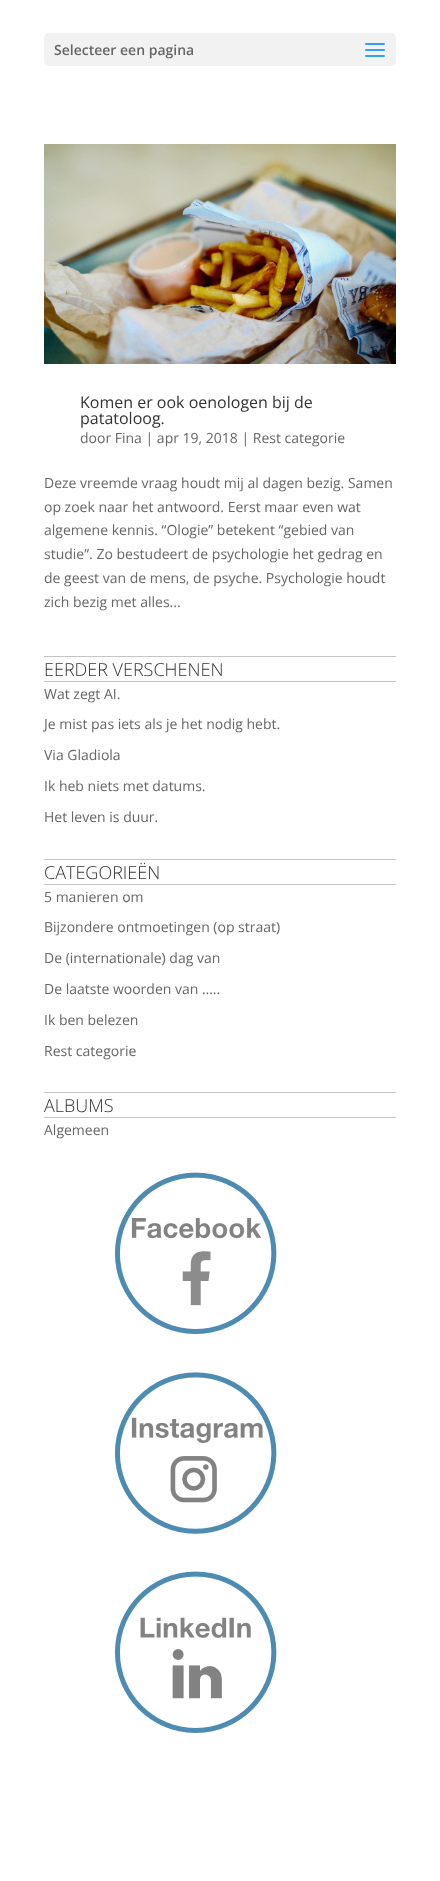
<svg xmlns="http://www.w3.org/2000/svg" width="440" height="1881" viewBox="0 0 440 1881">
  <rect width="100%" height="100%" fill="rgb(255,255,255)"/>
  <rect x="44" y="33" width="352" height="33" rx="5" fill="rgb(242,242,242)"/>
  <text x="54" y="55" font-family="Open Sans" font-size="14" font-weight="600" fill="rgb(102,102,102)">Selecteer een pagina</text>
  <image x="365" y="43" width="20" height="14" href="pic1.png"/>
  <image x="44" y="144" width="352" height="220" href="pic2.png"/>
  <g font-family="Open Sans" font-size="16" fill="rgb(51,51,51)">
    <text>
      <tspan x="80" y="408">Komen er ook oenologen bij de</tspan>
      <tspan x="80" y="424">patatoloog.</tspan>
    </text>
  </g>
  <g font-family="Open Sans" font-size="14" fill="rgb(102,102,102)">
    <text x="80" y="443">door Fina | apr 19, 2018 | Rest categorie</text>
    <text>
      <tspan x="44" y="488">Deze vreemde vraag houdt mij al dagen bezig. Samen</tspan>
      <tspan x="44" y="512">op zoek naar het antwoord. Eerst maar even wat</tspan>
      <tspan x="44" y="535">algemene kennis. “Ologie” betekent “gebied van</tspan>
      <tspan x="44" y="559">studie”. Zo bestudeert de psychologie het gedrag en</tspan>
      <tspan x="44" y="583">de geest van de mens, de psyche. Psychologie houdt</tspan>
      <tspan x="44" y="607">zich bezig met alles...</tspan>
    </text>
  </g>
  <rect x="44" y="656" width="352" height="1" fill="rgb(197,197,197)"/>
  <rect x="44" y="681" width="352" height="1" fill="rgb(197,197,197)"/>
  <text x="44" y="676" font-family="Open Sans" font-size="18" font-weight="300" fill="rgb(51,51,51)">EERDER VERSCHENEN</text>
  <g font-family="Open Sans" font-size="14" fill="rgb(102,102,102)">
    <text x="44" y="699">Wat zegt AI.</text>
    <text x="44" y="729">Je mist pas iets als je het nodig hebt.</text>
    <text x="44" y="760">Via Gladiola</text>
    <text x="44" y="791">Ik heb niets met datums.</text>
    <text x="44" y="822">Het leven is duur.</text>
  </g>
  <rect x="44" y="859" width="352" height="1" fill="rgb(197,197,197)"/>
  <rect x="44" y="884" width="352" height="1" fill="rgb(197,197,197)"/>
  <text x="44" y="879" font-family="Open Sans" font-size="18" font-weight="300" fill="rgb(51,51,51)">CATEGORIEËN</text>
  <g font-family="Open Sans" font-size="14" fill="rgb(102,102,102)">
    <text x="44" y="902">5 manieren om</text>
    <text x="44" y="932">Bijzondere ontmoetingen (op straat)</text>
    <text x="44" y="963">De (internationale) dag van</text>
    <text x="44" y="994">De laatste woorden van …..</text>
    <text x="44" y="1025">Ik ben belezen</text>
    <text x="44" y="1056">Rest categorie</text>
  </g>
  <rect x="44" y="1092" width="352" height="1" fill="rgb(197,197,197)"/>
  <rect x="44" y="1117" width="352" height="1" fill="rgb(197,197,197)"/>
  <text x="44" y="1112" font-family="Open Sans" font-size="18" font-weight="300" fill="rgb(51,51,51)">ALBUMS</text>
  <text x="44" y="1135" font-family="Open Sans" font-size="14" fill="rgb(102,102,102)">Algemeen</text>
  <image x="114" y="1172" width="163" height="162" href="pic3.png"/>
  <image x="114" y="1372" width="163" height="162" href="pic4.png"/>
  <image x="114" y="1571" width="163" height="162" href="pic5.png"/>
</svg>
